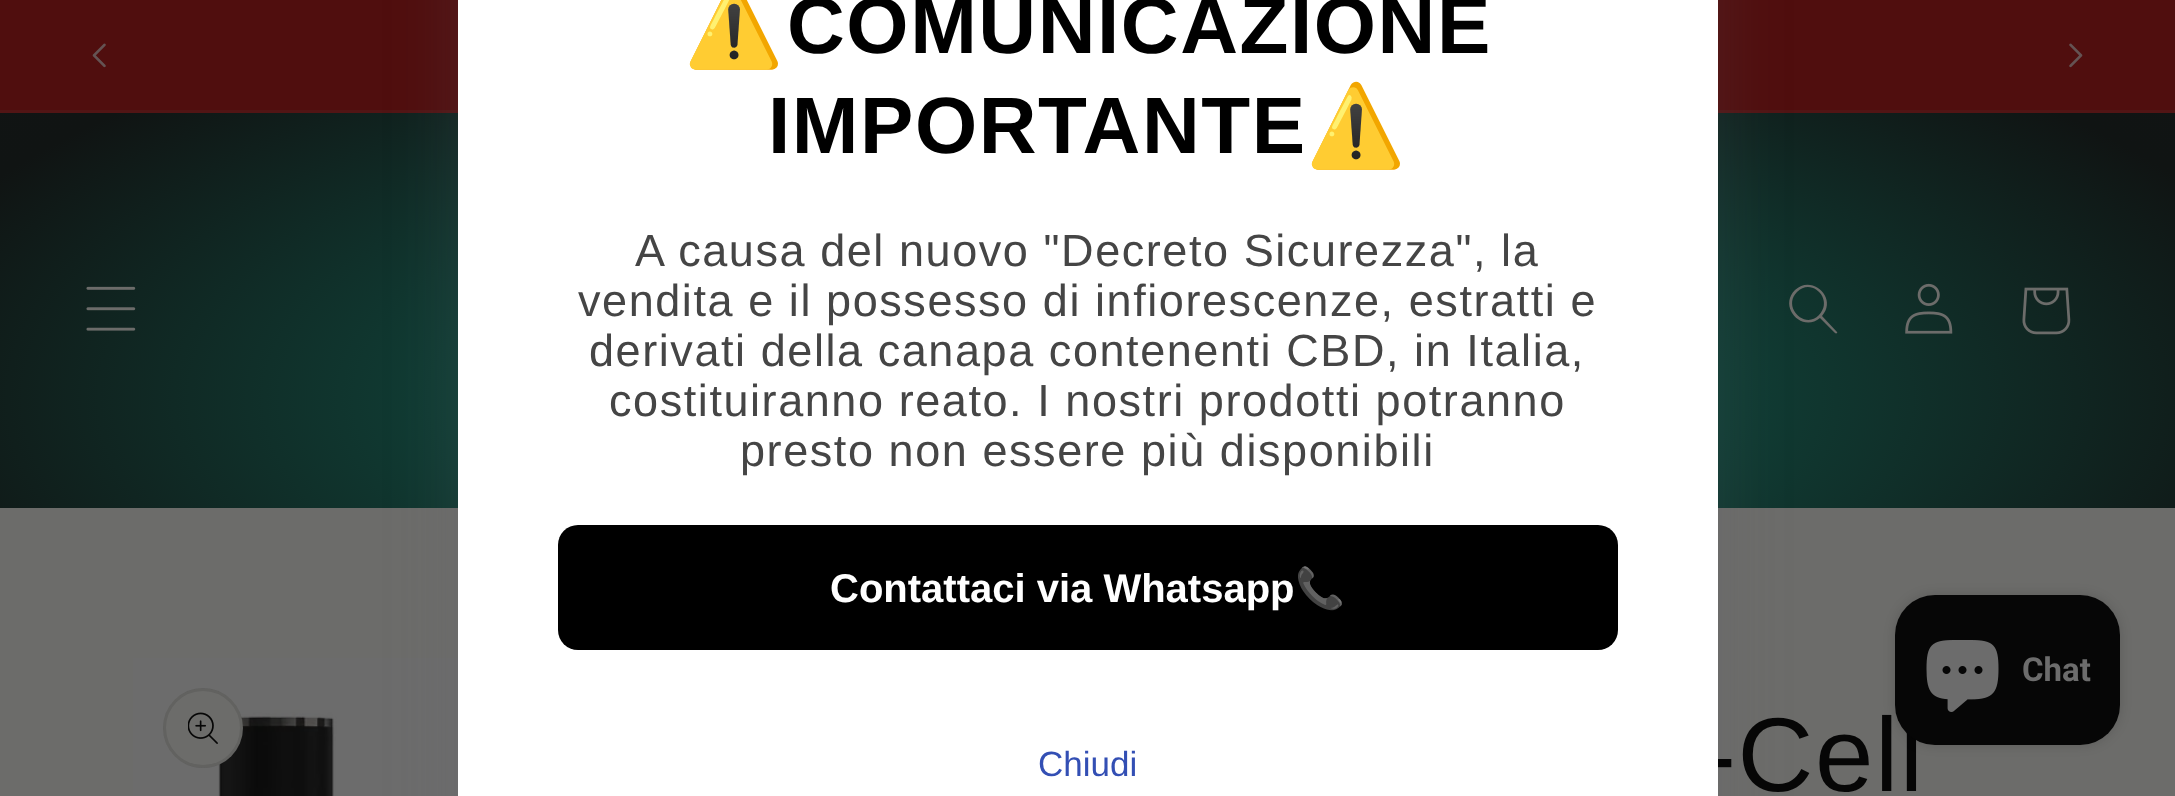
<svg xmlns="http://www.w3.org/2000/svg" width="2175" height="796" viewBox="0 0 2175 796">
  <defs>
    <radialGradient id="g1" gradientUnits="userSpaceOnUse" cx="0" cy="0" r="1" gradientTransform="matrix(1538 0 0 564 1088 399)"><stop offset="0.32" stop-color="rgb(16,70,60)"/><stop offset="0.81" stop-color="rgb(16,20,19)"/><stop offset="1" stop-color="rgb(17,20,20)"/></radialGradient>
  </defs>
  <rect width="100%" height="100%" fill="rgb(108,108,106)"/>
  <rect x="0" y="0" width="2175" height="110" fill="rgb(80,14,14)"/>
  <rect x="0" y="110" width="2175" height="3" fill="rgb(82,21,21)"/>
  <image x="92" y="43" width="14" height="25" href="pic1.png"/>
  <image x="2069" y="43" width="14" height="25" href="pic2.png"/>
  <rect x="0" y="113" width="2175" height="395" fill="url(#g1)"/>
  <path d="M1819 315C1805 330 1782 307 1797 292C1812 277 1834 300 1819 315M1820 318C1802 333 1778 307 1795 290C1812 274 1838 298 1822 316L1837 332C1838 333 1836 334 1835 333Z" fill="rgb(108,108,106)" fill-rule="evenodd"/>
  <image x="133" y="658" width="325" height="138" href="pic7.png"/>
  <rect x="458" y="-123" width="1260" height="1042" rx="15" fill="rgba(100,100,111,0.2)" filter="blur(36px)"/>
  <text x="1701" y="791" font-family="Arimo" font-size="105" letter-spacing="1.57" fill="rgb(6,6,6)">-Cell</text>
  <rect x="458" y="0" width="1260" height="796" fill="rgb(255,255,255)"/>
  <text x="684" y="53" font-family="Noto Color Emoji" font-size="80" font-weight="bold" letter-spacing="1.57" fill="rgb(0,0,0)">⚠️</text>
  <g font-family="Arimo" font-size="80" font-weight="bold" letter-spacing="1.57" fill="rgb(0,0,0)">
    <text x="787" y="53">COMUNICAZIONE</text>
    <text x="768" y="153">IMPORTANTE</text>
  </g>
  <text x="1306" y="153" font-family="Noto Color Emoji" font-size="80" font-weight="bold" letter-spacing="1.57" fill="rgb(0,0,0)">⚠️</text>
  <g font-family="Arimo" font-size="45" letter-spacing="1.57" fill="rgb(69,69,69)">
    <text x="635" y="266">A causa del nuovo "Decreto Sicurezza", la</text>
    <text x="578" y="316">vendita e il possesso di infiorescenze, estratti e</text>
    <text x="589" y="366">derivati della canapa contenenti CBD, in Italia,</text>
    <text x="609" y="416">costituiranno reato. I nostri prodotti potranno</text>
    <text x="740" y="466">presto non essere più disponibili</text>
  </g>
  <rect x="558" y="525" width="1060" height="125" rx="20" fill="rgb(0,0,0)"/>
  <text x="830" y="602" font-family="Liberation Sans" font-size="40" font-weight="bold" fill="rgb(255,255,255)">Contattaci via Whatsapp</text>
  <text x="1295" y="602" font-family="Noto Color Emoji" font-size="40" font-weight="bold" fill="rgb(255,255,255)">📞</text>
  <text x="1038" y="776" font-family="Liberation Sans" font-size="35" fill="rgb(51,79,180)">Chiudi</text>
  <image x="86" y="286" width="50" height="45" href="pic3.png"/>
  <image x="1905" y="283" width="48" height="51" href="pic4.png"/>
  <image x="2022" y="287" width="49" height="48" href="pic5.png"/>
  <rect x="1895" y="595" width="225" height="150" rx="40" fill="rgba(6,6,6,0.15)" filter="blur(6px)"/>
  <rect x="1895" y="595" width="225" height="150" rx="40" fill="rgb(6,6,6)"/>
  <image x="1926" y="640" width="73" height="72" href="pic6.png"/>
  <text x="2022" y="681" font-family="Roboto" font-size="33" font-weight="bold" fill="rgb(108,108,108)">Chat</text>
  <circle cx="203" cy="728" r="40" fill="rgb(108,108,106)"/>
  <circle cx="203" cy="728" r="38.5" fill="none" stroke="rgba(6,6,6,0.1)" stroke-width="3"/>
  <image x="188" y="712" width="30" height="32" href="pic8.png"/>
</svg>
